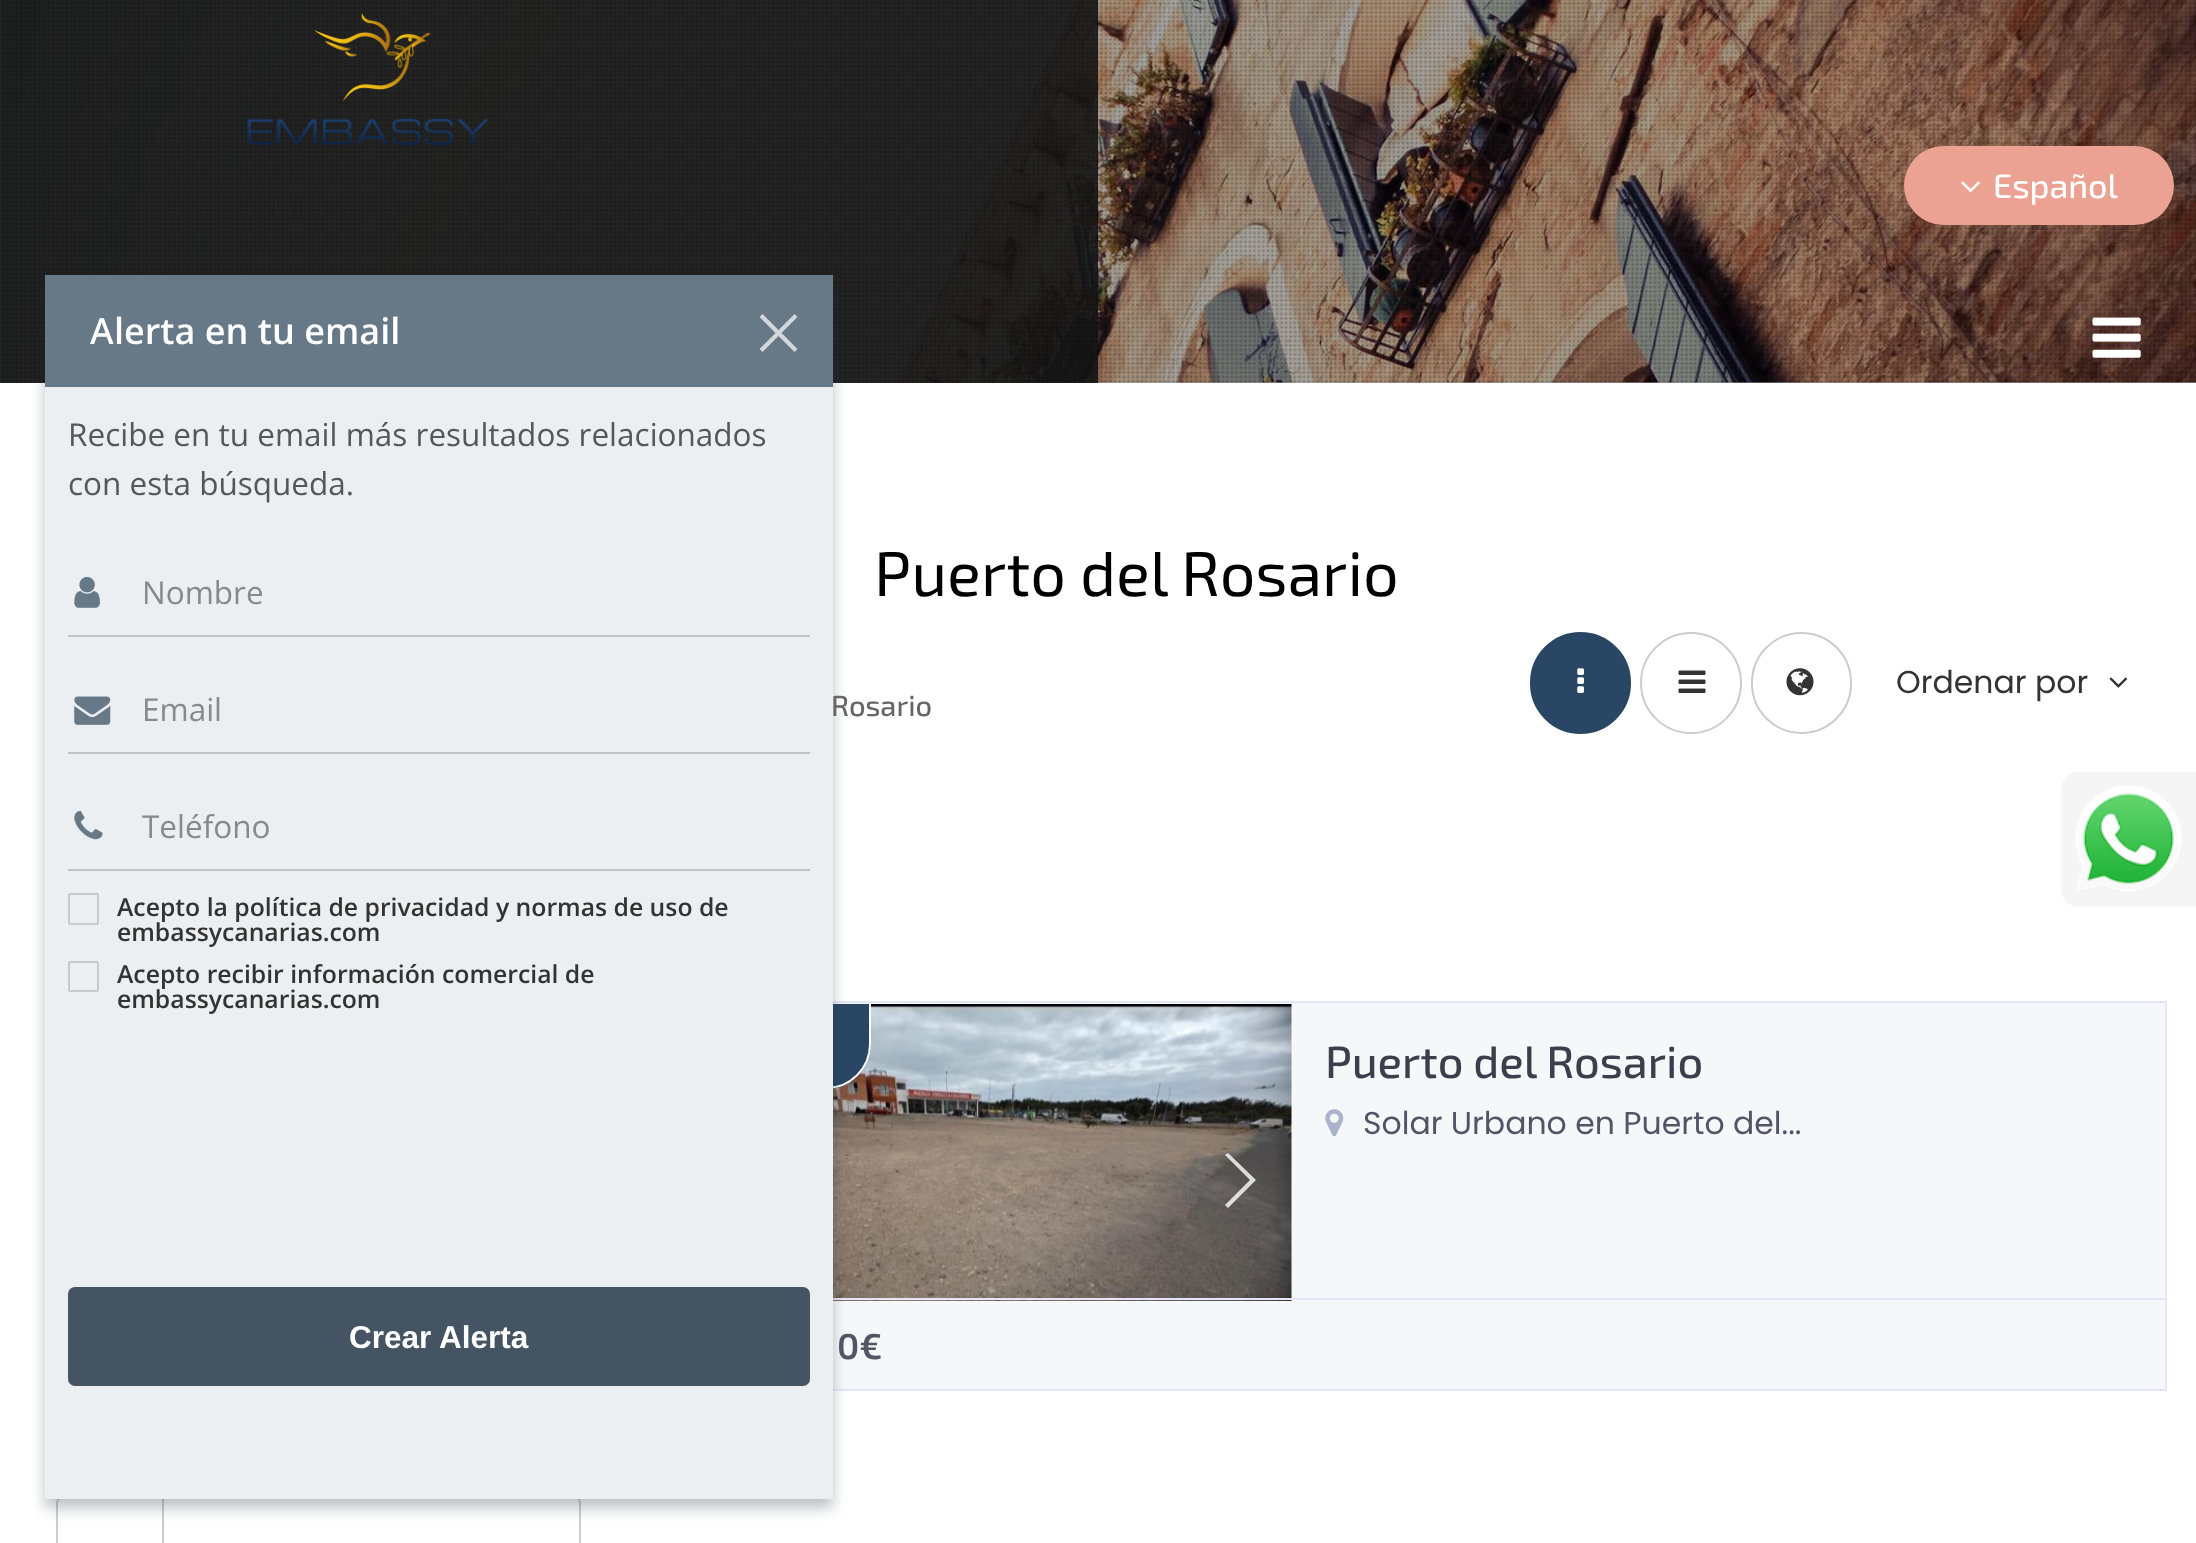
<svg xmlns="http://www.w3.org/2000/svg" width="2196" height="1543" viewBox="0 0 2196 1543">
  <defs>
    <clipPath id="clip1"><rect x="684" y="1004" width="608" height="297"/></clipPath>
  </defs>
  <rect width="100%" height="100%" fill="rgb(255,255,255)"/>
  <rect x="0" y="382" width="2196" height="1" fill="rgb(166,166,166)"/>
  <image x="0" y="0" width="2196" height="383" href="pic1.png"/>
  <rect x="0" y="0" width="1098" height="383" fill="rgba(22,22,22,0.9)"/>
  <image x="2" y="0" width="2194" height="383" href="pic2.png"/>
  <image x="247" y="13" width="242" height="133" href="pic3.png"/>
  <rect x="1904" y="146" width="270" height="79" rx="39.5" fill="rgb(235,162,146)"/>
  <image x="1961" y="181" width="19" height="12" href="pic4.png"/>
  <text x="1993" y="198" font-family="'Exo 2'" font-size="34" font-weight="500" fill="rgb(255,255,255)">Español</text>
  <image x="2092" y="317" width="49" height="41" href="pic5.png"/>
  <rect x="833" y="1003" width="1332" height="386" fill="rgb(246,247,249)"/>
  <rect x="683" y="1002" width="1483" height="388" fill="none" stroke="rgb(229,229,248)" stroke-width="2"/>
  <image x="833" y="1004" width="459" height="297" href="pic13.png"/>
  <path d="M707 1004H871V1044C871 1069 851 1089 826 1089H752C727 1089 707 1069 707 1044Z" fill="rgb(41,71,100)"/>
  <g clip-path="url(#clip1)">
    <rect x="708" y="960" width="162" height="128" rx="44" fill="none" stroke="rgb(255,255,255)" stroke-width="2"/>
  </g>
  <rect x="833" y="1298" width="1332" height="2" fill="rgb(229,229,248)"/>
  <rect x="57" y="1497" width="523" height="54" rx="6" fill="none" stroke="rgb(205,205,209)" stroke-width="2"/>
  <rect x="162" y="1496" width="2" height="47" fill="rgb(205,205,209)"/>
  <rect x="45" y="284" width="788" height="1224" fill="rgba(35,50,56,0.3)" filter="blur(7px)"/>
  <rect x="45" y="387" width="788" height="1112" fill="rgb(236,239,241)"/>
  <rect x="45" y="275" width="788" height="112" fill="rgb(103,120,135)"/>
  <text x="90" y="344" font-family="Noto Sans" font-size="36" font-weight="500" fill="rgb(255,255,255)">A</text>
  <text x="114" y="344" font-family="Open Sans" font-size="36" font-weight="600" fill="rgb(255,255,255)">lerta en tu email</text>
  <path d="M762.5 314L797.5 349L794.5 352L759.5 317Z" fill="rgb(209,215,219)"/>
  <path d="M759.5 349L794.5 314L797.5 317L762.5 352Z" fill="rgb(209,215,219)"/>
  <g font-family="Open Sans" font-size="31.5" fill="rgb(87,87,87)">
    <text>
      <tspan x="68" y="446">Recibe en tu email más resultados relacionados</tspan>
      <tspan x="68" y="495">con esta búsqueda.</tspan>
    </text>
  </g>
  <image x="74" y="577" width="26" height="31" href="pic6.png"/>
  <rect x="68" y="635" width="742" height="2" fill="rgb(194,194,194)"/>
  <text x="142" y="604" font-family="Open Sans" font-size="31.5" fill="rgb(138,137,137)">Nombre</text>
  <image x="74" y="696" width="37" height="29" href="pic7.png"/>
  <rect x="68" y="752" width="742" height="2" fill="rgb(194,194,194)"/>
  <text x="142" y="721" font-family="Open Sans" font-size="31.5" fill="rgb(138,137,137)">Email</text>
  <image x="74" y="811" width="29" height="29" href="pic8.png"/>
  <rect x="68" y="869" width="742" height="2" fill="rgb(194,194,194)"/>
  <text x="142" y="838" font-family="Open Sans" font-size="31.5" fill="rgb(138,137,137)">Teléfono</text>
  <rect x="69" y="894" width="29" height="30" rx="1" fill="none" stroke="rgb(201,201,201)" stroke-width="2"/>
  <g font-family="Open Sans" font-size="24.75" font-weight="600" fill="rgb(51,51,51)">
    <text>
      <tspan x="117" y="916">Acepto la política de privacidad y normas de uso de</tspan>
      <tspan x="117" y="941">embassycanarias.com</tspan>
    </text>
  </g>
  <rect x="69" y="962" width="29" height="29" rx="1" fill="none" stroke="rgb(201,201,201)" stroke-width="2"/>
  <g font-family="Open Sans" font-size="24.75" font-weight="600" fill="rgb(51,51,51)">
    <text>
      <tspan x="117" y="983">Acepto recibir información comercial de</tspan>
      <tspan x="117" y="1008">embassycanarias.com</tspan>
    </text>
  </g>
  <rect x="68" y="1287" width="742" height="99" rx="7" fill="rgb(69,84,98)"/>
  <text x="349" y="1348" font-family="Liberation Sans" font-size="31.5" font-weight="bold" fill="rgb(255,255,255)">Crear Alerta</text>
  <text x="874" y="596" font-family="'Exo 2'" font-size="63" fill="rgb(0,0,0)">Puerto del Rosario</text>
  <rect x="1531" y="633" width="99" height="100" rx="49.5" fill="rgb(41,71,100)" stroke="rgb(41,71,100)" stroke-width="2"/>
  <image x="1577" y="668" width="7" height="25" href="pic9.png"/>
  <circle cx="1691" cy="683" r="50" fill="none" stroke="rgb(204,204,204)" stroke-width="2"/>
  <image x="1678" y="670" width="28" height="23" href="pic10.png"/>
  <rect x="1752" y="633" width="99" height="100" rx="49.5" fill="none" stroke="rgb(204,204,204)" stroke-width="2"/>
  <image x="1786" y="668" width="28" height="28" href="pic11.png"/>
  <text x="1896" y="693" font-family="Poppins" font-size="31.5" fill="rgb(51,51,51)">Ordenar por</text>
  <image x="2109" y="677" width="19" height="11" href="pic12.png"/>
  <text x="831" y="716" font-family="'Exo 2'" font-size="29" font-weight="500" fill="rgb(102,102,102)">Rosario</text>
  <path d="M1256 1180L1228 1208L1225 1205L1250 1180L1225 1155L1228 1153Z" fill="rgba(255,255,255,0.8)"/>
  <text x="1325" y="1078" font-family="'Exo 2'" font-size="45" font-weight="500" fill="rgb(58,63,76)">Puerto del Rosario</text>
  <image x="1325" y="1109" width="19" height="28" href="pic14.png"/>
  <text x="1363" y="1134" font-family="Poppins" font-size="31.5" fill="rgb(81,86,102)">Solar Urbano en Puerto del...</text>
  <text x="837" y="1359" font-family="'Exo 2'" font-size="36" font-weight="600" fill="rgb(81,86,102)">0€</text>
  <path d="M2079 772H2196V907H2079C2069 907 2061 899 2061 889V790C2061 780 2069 772 2079 772Z" fill="rgb(245,245,245)"/>
  <image x="2075" y="785" width="108" height="108" href="pic15.png"/>
</svg>
